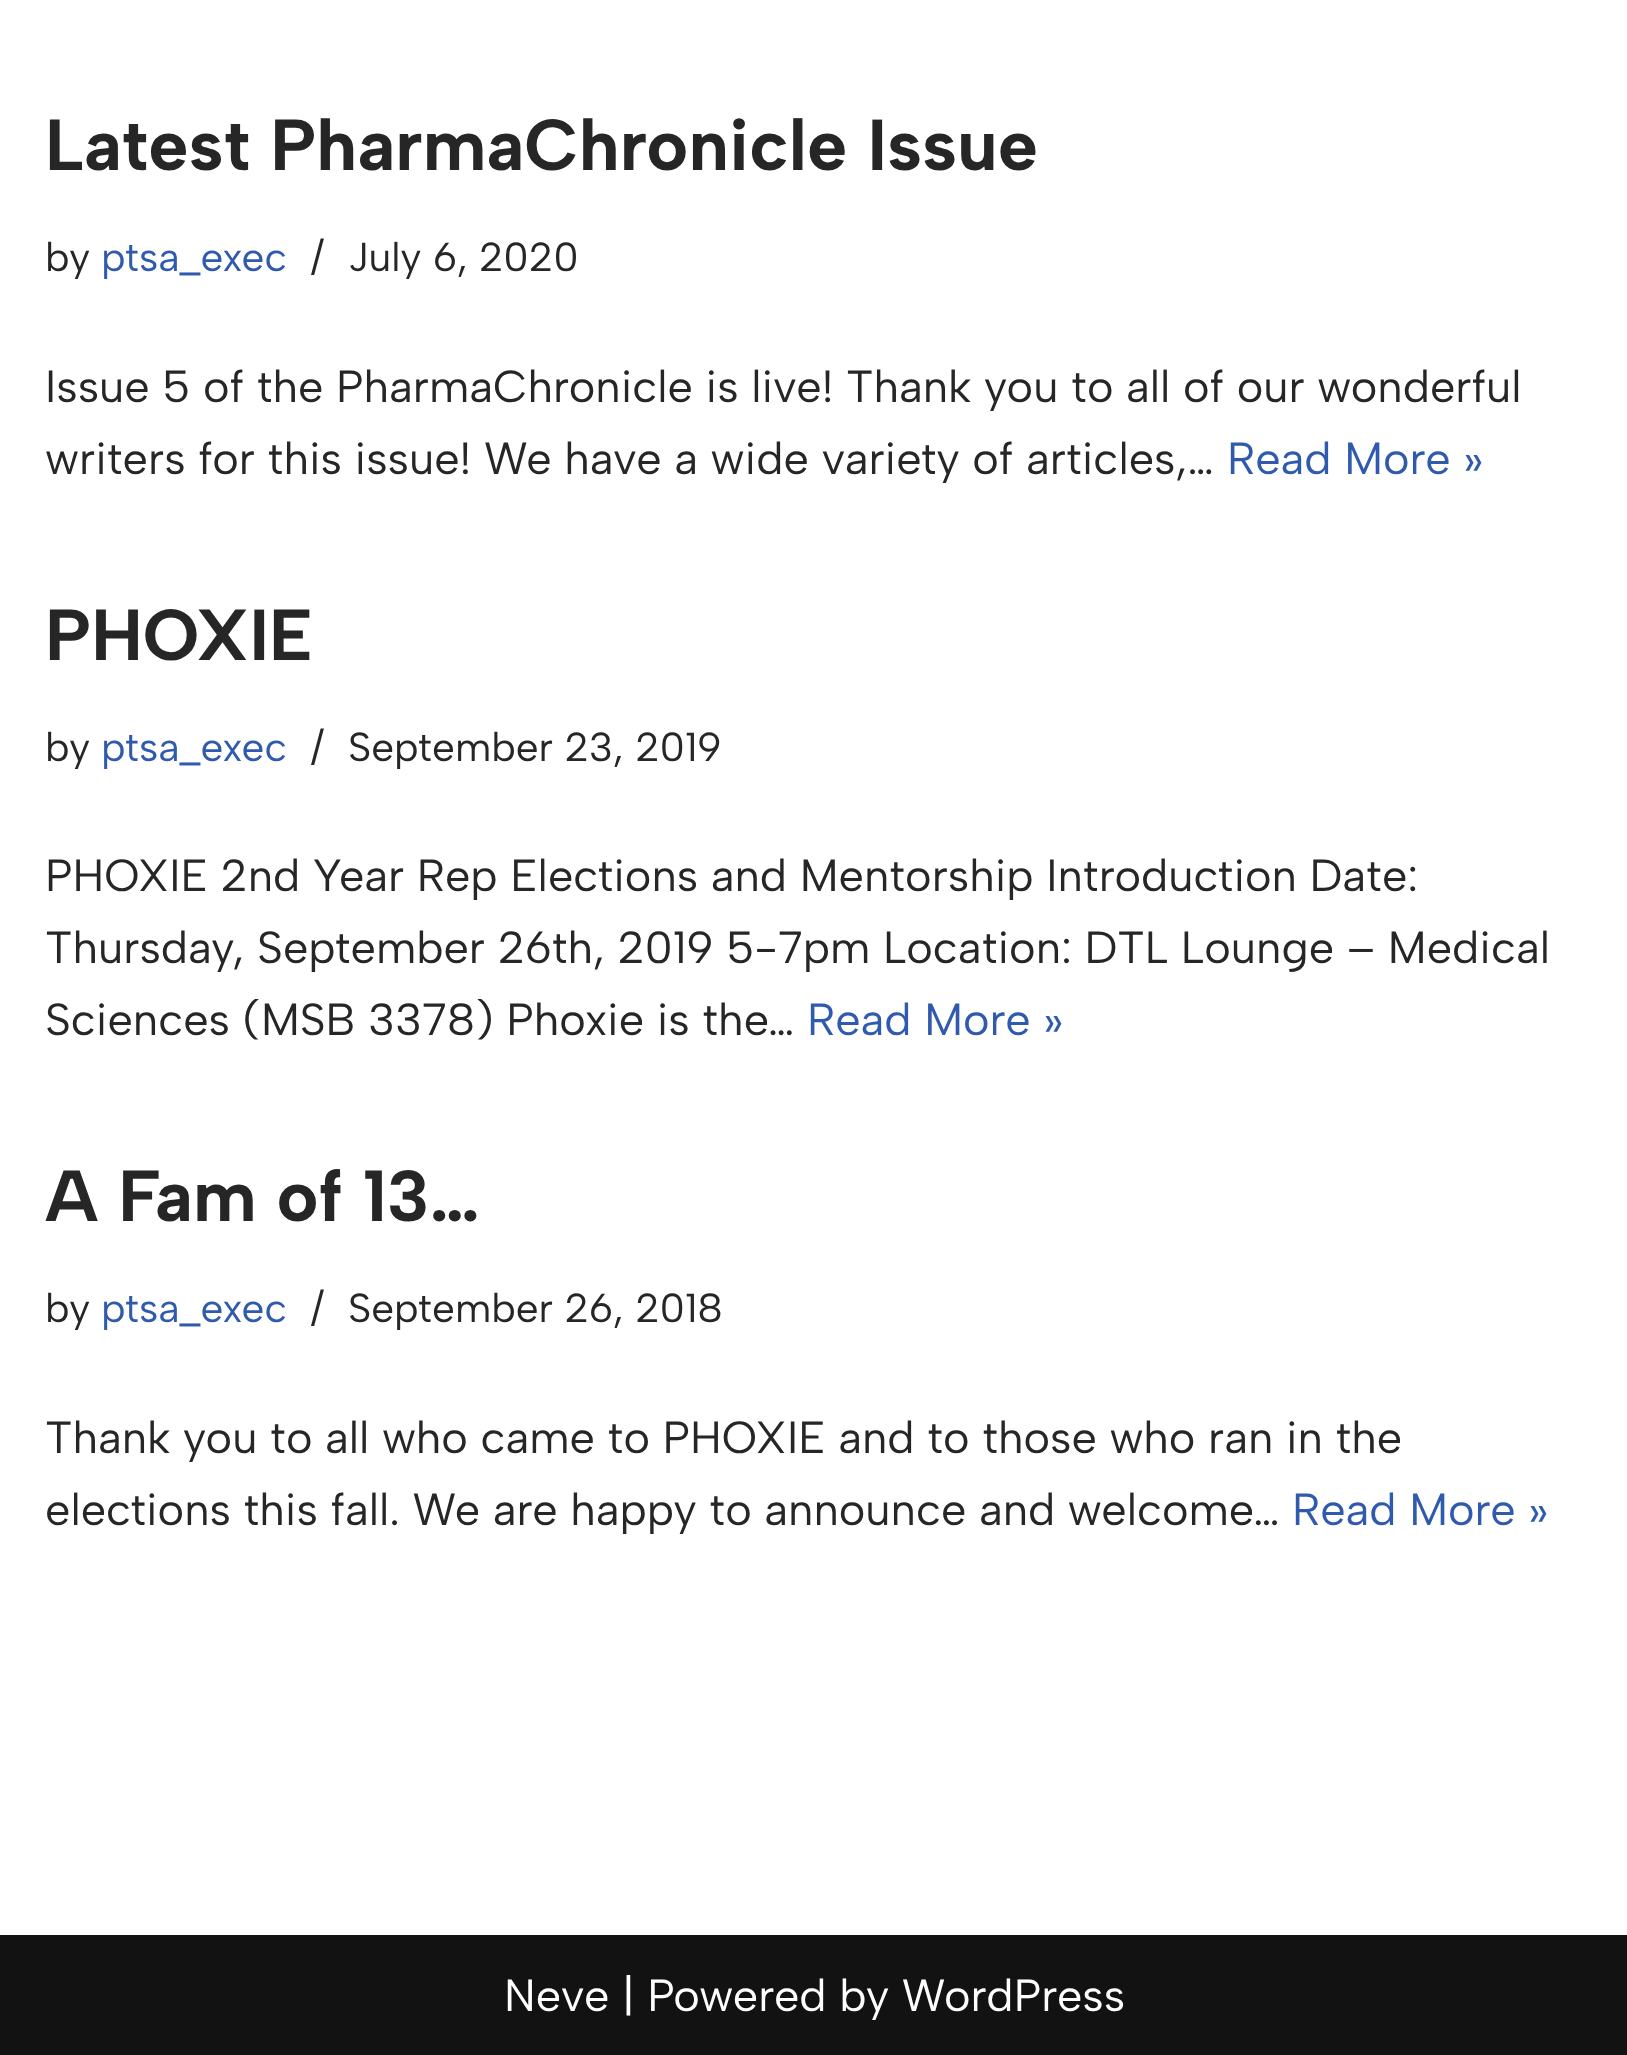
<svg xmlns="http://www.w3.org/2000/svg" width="1627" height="2055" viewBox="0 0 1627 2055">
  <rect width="100%" height="100%" fill="rgb(255,255,255)"/>
  <text x="45" y="170" font-family="Albert Sans" font-size="72" font-weight="bold" fill="rgb(39,38,38)">Latest PharmaChronicle Issue</text>
  <text x="45" y="271" font-family="Albert Sans" font-size="40.5" fill="rgb(39,38,38)">by</text>
  <text x="101" y="271" font-family="Albert Sans" font-size="40.5" fill="rgb(47,90,174)">ptsa_exec</text>
  <g font-family="Albert Sans" font-size="40.5" fill="rgb(39,38,38)">
    <text x="311" y="271">/</text>
    <text x="348" y="271">July 6, 2020</text>
  </g>
  <g font-family="Albert Sans" font-size="45" fill="rgb(39,38,38)">
    <text>
      <tspan x="45" y="402">Issue 5 of the PharmaChronicle is live! Thank you to all of our wonderful</tspan>
      <tspan x="45" y="474">writers for this issue! We have a wide variety of articles,…</tspan>
    </text>
  </g>
  <text x="1227" y="474" font-family="Albert Sans" font-size="45" fill="rgb(47,90,174)">Read More »</text>
  <text x="45" y="660" font-family="Albert Sans" font-size="72" font-weight="bold" fill="rgb(39,38,38)">PHOXIE</text>
  <text x="45" y="761" font-family="Albert Sans" font-size="40.5" fill="rgb(39,38,38)">by</text>
  <text x="101" y="761" font-family="Albert Sans" font-size="40.5" fill="rgb(47,90,174)">ptsa_exec</text>
  <g font-family="Albert Sans" font-size="40.5" fill="rgb(39,38,38)">
    <text x="311" y="761">/</text>
    <text x="348" y="761">September 23, 2019</text>
  </g>
  <g font-family="Albert Sans" font-size="45" fill="rgb(39,38,38)">
    <text>
      <tspan x="45" y="891">PHOXIE 2nd Year Rep Elections and Mentorship Introduction Date:</tspan>
      <tspan x="45" y="963">Thursday, September 26th, 2019 5-7pm Location: DTL Lounge – Medical</tspan>
      <tspan x="45" y="1035">Sciences (MSB 3378) Phoxie is the…</tspan>
    </text>
  </g>
  <text x="807" y="1035" font-family="Albert Sans" font-size="45" fill="rgb(47,90,174)">Read More »</text>
  <text x="45" y="1221" font-family="Albert Sans" font-size="72" font-weight="bold" fill="rgb(39,38,38)">A Fam of 13…</text>
  <text x="45" y="1322" font-family="Albert Sans" font-size="40.5" fill="rgb(39,38,38)">by</text>
  <text x="101" y="1322" font-family="Albert Sans" font-size="40.5" fill="rgb(47,90,174)">ptsa_exec</text>
  <g font-family="Albert Sans" font-size="40.5" fill="rgb(39,38,38)">
    <text x="311" y="1322">/</text>
    <text x="348" y="1322">September 26, 2018</text>
  </g>
  <g font-family="Albert Sans" font-size="45" fill="rgb(39,38,38)">
    <text>
      <tspan x="45" y="1453">Thank you to all who came to PHOXIE and to those who ran in the</tspan>
      <tspan x="45" y="1525">elections this fall. We are happy to announce and welcome…</tspan>
    </text>
  </g>
  <text x="1292" y="1525" font-family="Albert Sans" font-size="45" fill="rgb(47,90,174)">Read More »</text>
  <rect x="0" y="1935" width="1627" height="120" fill="rgb(18,18,18)"/>
  <text x="504" y="2011" font-family="Albert Sans" font-size="45" fill="rgb(255,255,255)">Neve | Powered by WordPress</text>
</svg>
